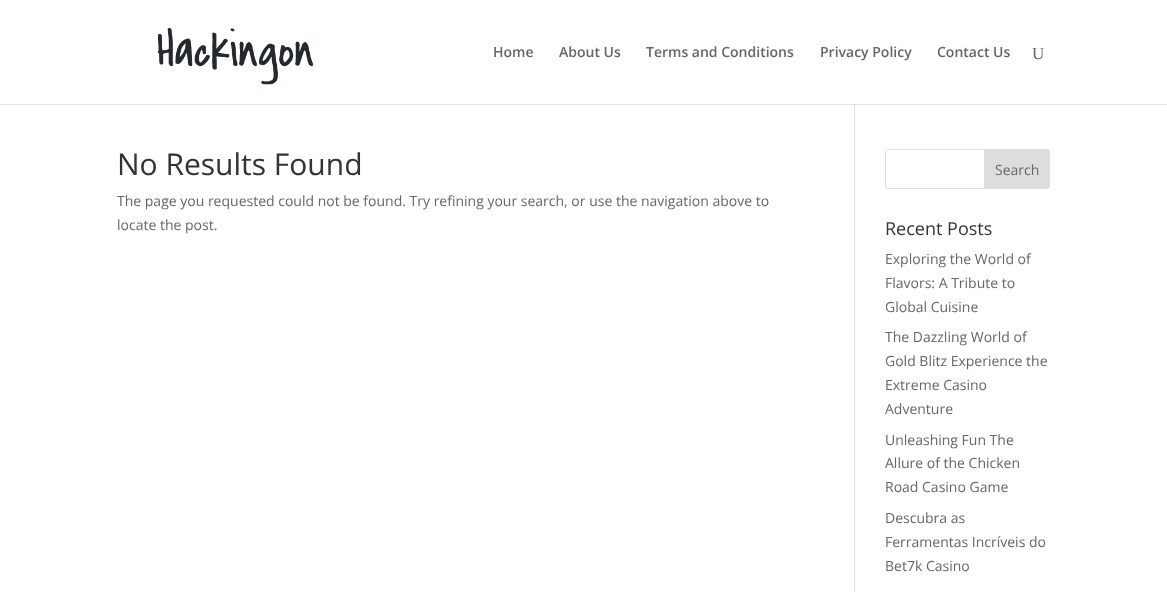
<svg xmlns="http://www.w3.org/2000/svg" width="1167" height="592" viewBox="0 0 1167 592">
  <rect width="100%" height="100%" fill="rgb(255,255,255)"/>
  <rect x="0" y="104" width="1167" height="1" fill="rgb(230,230,230)"/>
  <image x="157" y="27" width="157" height="58" href="pic1.png"/>
  <g font-family="Open Sans" font-size="14" font-weight="600" fill="rgb(102,102,102)">
    <text x="493" y="57">Home</text>
    <text x="559" y="57">About Us</text>
    <text x="646" y="57">Terms and Conditions</text>
    <text x="820" y="57">Privacy Policy</text>
    <text x="937" y="57">Contact Us</text>
  </g>
  <text x="1032" y="59" font-family="Liberation Serif" font-size="17" fill="rgb(102,102,102)">U</text>
  <rect x="854" y="105" width="1" height="487" fill="rgb(226,226,226)"/>
  <rect x="854" y="104" width="1" height="1" fill="rgb(203,203,203)"/>
  <text x="117" y="175" font-family="Open Sans" font-size="30" fill="rgb(51,51,51)">No Results Found</text>
  <g font-family="Open Sans" font-size="14" fill="rgb(102,102,102)">
    <text>
      <tspan x="117" y="206">The page you requested could not be found. Try refining your search, or use the navigation above to</tspan>
      <tspan x="117" y="230">locate the post.</tspan>
    </text>
  </g>
  <rect x="885.5" y="149.5" width="164" height="39" rx="2.5" fill="none" stroke="rgb(221,221,221)"/>
  <path d="M984.5 149.5H1047C1048.5 149.5 1049.5 150.5 1049.5 152V186C1049.5 187.5 1048.5 188.5 1047 188.5H984.5Z" fill="rgb(221,221,221)" stroke="rgb(221,221,221)"/>
  <text x="995" y="175" font-family="Open Sans" font-size="14" fill="rgb(102,102,102)">Search</text>
  <text x="885" y="235" font-family="Open Sans" font-size="18" fill="rgb(51,51,51)">Recent Posts</text>
  <g font-family="Open Sans" font-size="14" fill="rgb(102,102,102)">
    <text>
      <tspan x="885" y="264">Exploring the World of</tspan>
      <tspan x="885" y="288">Flavors: A Tribute to</tspan>
      <tspan x="885" y="312">Global Cuisine</tspan>
    </text>
    <text>
      <tspan x="885" y="342">The Dazzling World of</tspan>
      <tspan x="885" y="366">Gold Blitz Experience the</tspan>
      <tspan x="885" y="390">Extreme Casino</tspan>
      <tspan x="885" y="414">Adventure</tspan>
    </text>
    <text>
      <tspan x="885" y="445">Unleashing Fun The</tspan>
      <tspan x="885" y="468">Allure of the Chicken</tspan>
      <tspan x="885" y="492">Road Casino Game</tspan>
    </text>
    <text>
      <tspan x="885" y="523">Descubra as</tspan>
      <tspan x="885" y="547">Ferramentas Incríveis do</tspan>
      <tspan x="885" y="571">Bet7k Casino</tspan>
    </text>
  </g>
</svg>
